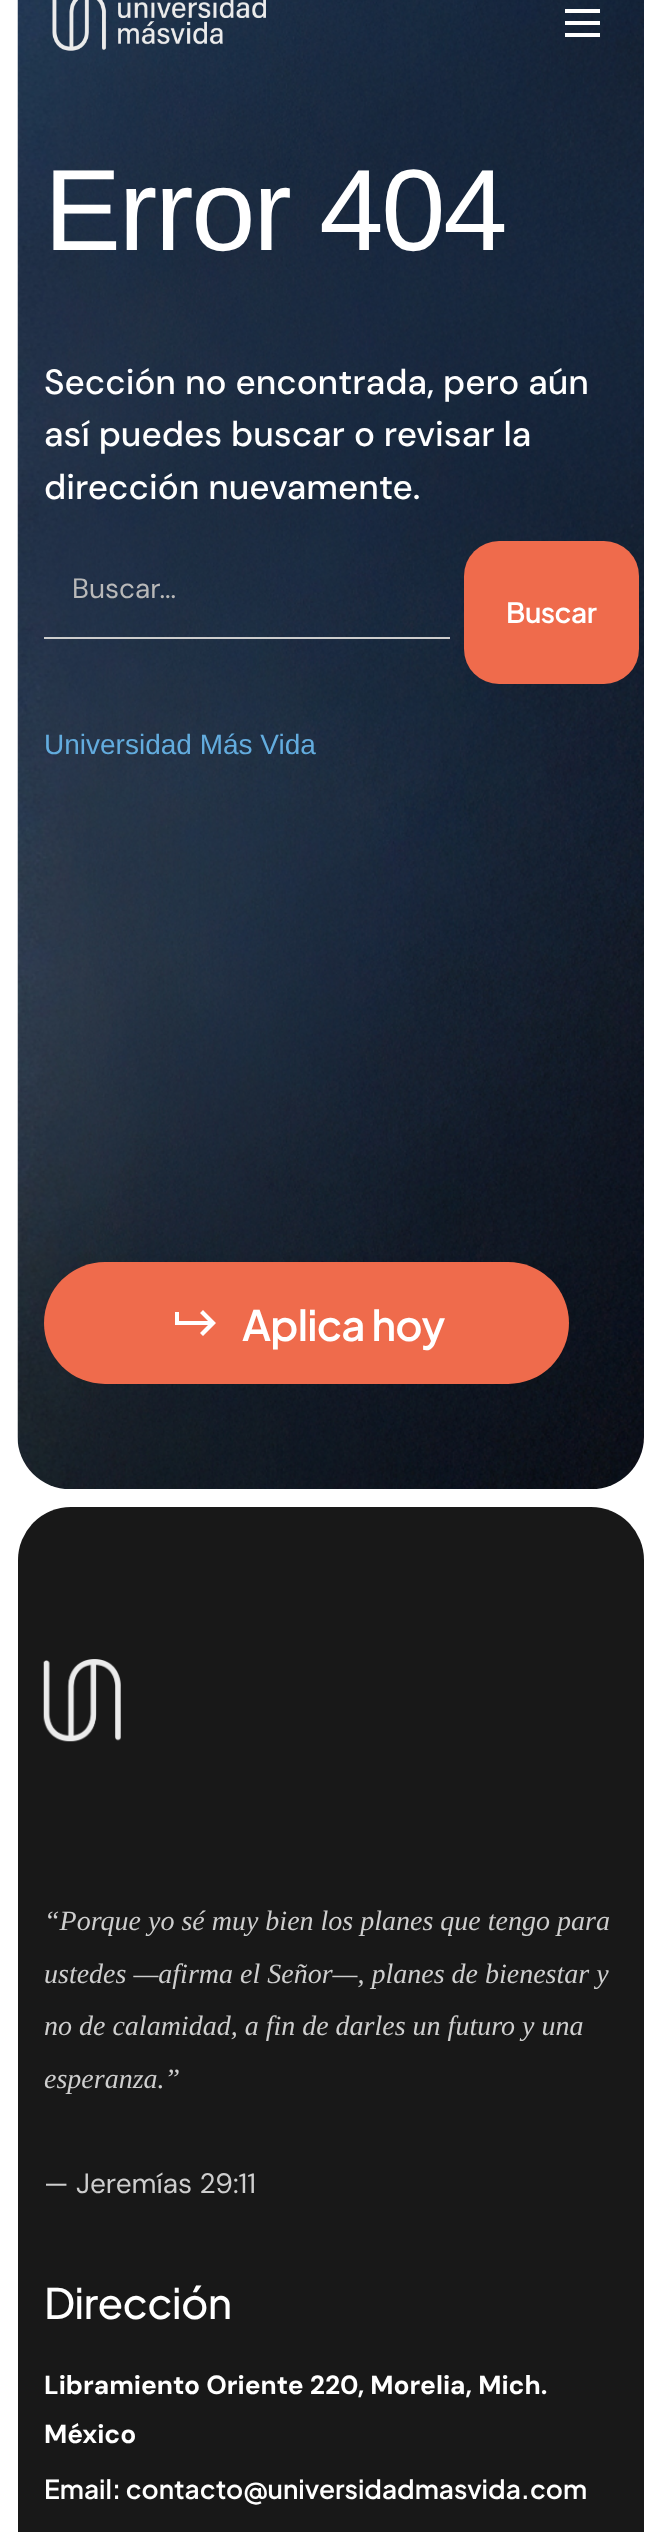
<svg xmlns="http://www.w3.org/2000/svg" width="660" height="2532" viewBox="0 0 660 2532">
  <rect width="100%" height="100%" fill="rgb(255,255,255)"/>
  <image x="17" y="0" width="627" height="1489" href="pic2.png"/>
  <image x="52" y="0" width="214" height="51" href="pic1.png"/>
  <rect x="565" y="9" width="35" height="4" fill="rgb(255,255,255)"/>
  <rect x="565" y="21" width="35" height="4" fill="rgb(255,255,255)"/>
  <rect x="565" y="33" width="35" height="4" fill="rgb(255,255,255)"/>
  <text x="44" y="250" font-family="Liberation Sans" font-size="115.5" letter-spacing="-2.25" fill="rgb(255,255,255)">Error 404</text>
  <g font-family="DM Sans" font-size="35" font-weight="500" fill="rgb(255,255,255)">
    <text>
      <tspan x="44" y="394">Sección no encontrada, pero aún</tspan>
      <tspan x="44" y="446">así puedes buscar o revisar la</tspan>
      <tspan x="44" y="499">dirección nuevamente.</tspan>
    </text>
  </g>
  <rect x="44" y="637" width="406" height="2" fill="rgb(205,205,205)"/>
  <text x="72" y="598" font-family="DM Sans" font-size="28" fill="rgb(185,185,185)">Buscar...</text>
  <rect x="464" y="541" width="175" height="143" rx="35" fill="rgb(239,107,76)"/>
  <text x="506" y="623" font-family="Plus Jakarta Sans" font-size="28" font-weight="600" letter-spacing="-0.5" fill="rgb(255,255,255)">Buscar</text>
  <text x="44" y="754" font-family="Liberation Sans" font-size="28" fill="rgb(99,172,222)">Universidad Más Vida</text>
  <rect x="44" y="1262" width="525" height="122" rx="61" fill="rgb(239,107,76)"/>
  <path d="M179 1312V1321H208L200 1313L203 1310L216 1323L203 1336L200 1333L208 1325H175V1312Z" fill="rgb(255,255,255)"/>
  <text x="242" y="1341" font-family="Plus Jakarta Sans" font-size="42" font-weight="600" letter-spacing="-0.75" fill="rgb(255,255,255)">Aplica hoy</text>
  <rect x="18" y="1507" width="626" height="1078" rx="53" fill="rgb(24,24,24)"/>
  <image x="43" y="1659" width="78" height="83" href="pic3.png"/>
  <g font-family="Liberation Serif" font-size="28" font-style="italic" fill="rgb(206,206,206)">
    <text>
      <tspan x="44" y="1930">“Porque yo sé muy bien los planes que tengo para</tspan>
      <tspan x="44" y="1983">ustedes —afirma el Señor—, planes de bienestar y</tspan>
      <tspan x="44" y="2035">no de calamidad, a fin de darles un futuro y una</tspan>
      <tspan x="44" y="2088">esperanza.”</tspan>
    </text>
  </g>
  <text x="44" y="2193" font-family="DM Sans" font-size="28" fill="rgb(206,206,206)">— Jeremías 29:11</text>
  <text x="44" y="2319" font-family="Plus Jakarta Sans" font-size="42" font-weight="500" letter-spacing="-0.75" fill="rgb(255,255,255)">Dirección</text>
  <g font-family="DM Sans" font-size="26.25" font-weight="bold" fill="rgb(255,255,255)">
    <text>
      <tspan x="44" y="2394">Libramiento Oriente 220, Morelia, Mich.</tspan>
      <tspan x="44" y="2443">México</tspan>
    </text>
  </g>
  <text x="44" y="2499" font-family="Plus Jakarta Sans" font-size="26.25" font-weight="600" fill="rgb(255,255,255)">Email: contacto@universidadmasvida.com</text>
</svg>
